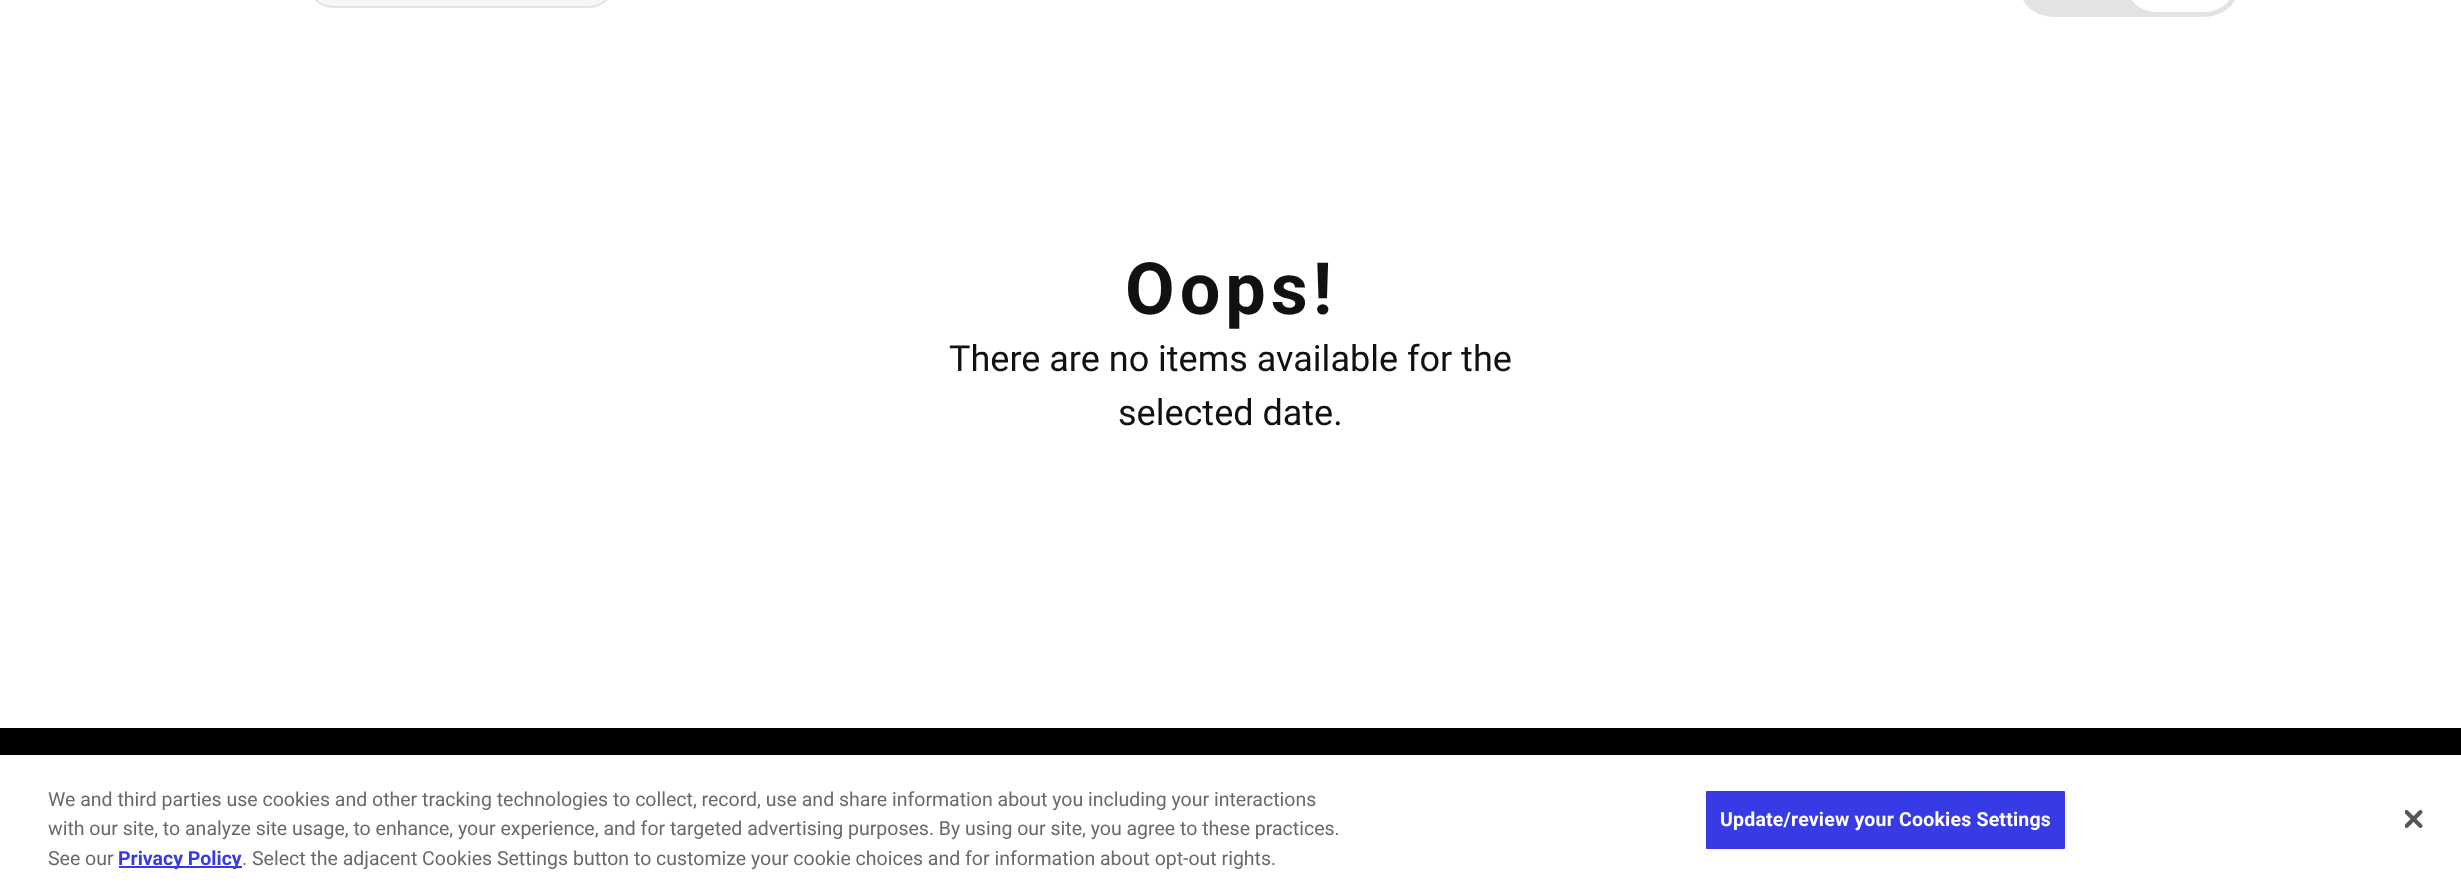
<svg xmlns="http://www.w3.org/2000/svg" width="2461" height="888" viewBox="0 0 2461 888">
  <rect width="100%" height="100%" fill="rgb(255,255,255)"/>
  <rect x="312" y="-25" width="298" height="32" rx="23" fill="rgb(247,247,248)" stroke="rgb(227,227,227)" stroke-width="2"/>
  <rect x="2021" y="-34" width="216" height="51" rx="34" fill="rgb(227,227,227)"/>
  <rect x="2129" y="-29" width="103" height="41" rx="29" fill="rgb(255,255,255)"/>
  <text x="1125" y="314" font-family="Roboto" font-size="72" font-weight="bold" letter-spacing="5" fill="rgb(17,17,17)">Oops!</text>
  <g font-family="Roboto" font-size="36" fill="rgb(17,17,17)">
    <text x="949" y="371">There are no items available for the</text>
    <text x="1118" y="425">selected date.</text>
  </g>
  <rect x="0" y="728" width="2461" height="27" fill="rgb(0,0,0)"/>
  <g font-family="Roboto" font-size="19.5" fill="rgb(105,105,105)">
    <text>
      <tspan x="48" y="806">We and third parties use cookies and other tracking technologies to collect, record, use and share information about you including your interactions</tspan>
      <tspan x="48" y="835">with our site, to analyze site usage, to enhance, your experience, and for targeted advertising purposes. By using our site, you agree to these practices.</tspan>
      <tspan x="48" y="865">See our</tspan>
    </text>
  </g>
  <rect x="119" y="866" width="123" height="2" fill="rgb(55,58,229)"/>
  <text x="118" y="865" font-family="Roboto" font-size="19.5" font-weight="bold" fill="rgb(55,58,229)">Privacy Policy</text>
  <text x="242" y="865" font-family="Roboto" font-size="19.5" fill="rgb(105,105,105)">. Select the adjacent Cookies Settings button to customize your cookie choices and for information about opt-out rights.</text>
  <rect x="1705" y="790" width="361" height="60" rx="2" fill="rgb(55,58,229)" stroke="rgb(255,255,255)" stroke-width="2"/>
  <text x="1720" y="826" font-family="Roboto" font-size="19.5" font-weight="bold" letter-spacing="0.2" fill="rgb(255,255,255)">Update/review your Cookies Settings</text>
  <image x="2405" y="810" width="18" height="18" href="pic1.png"/>
</svg>
